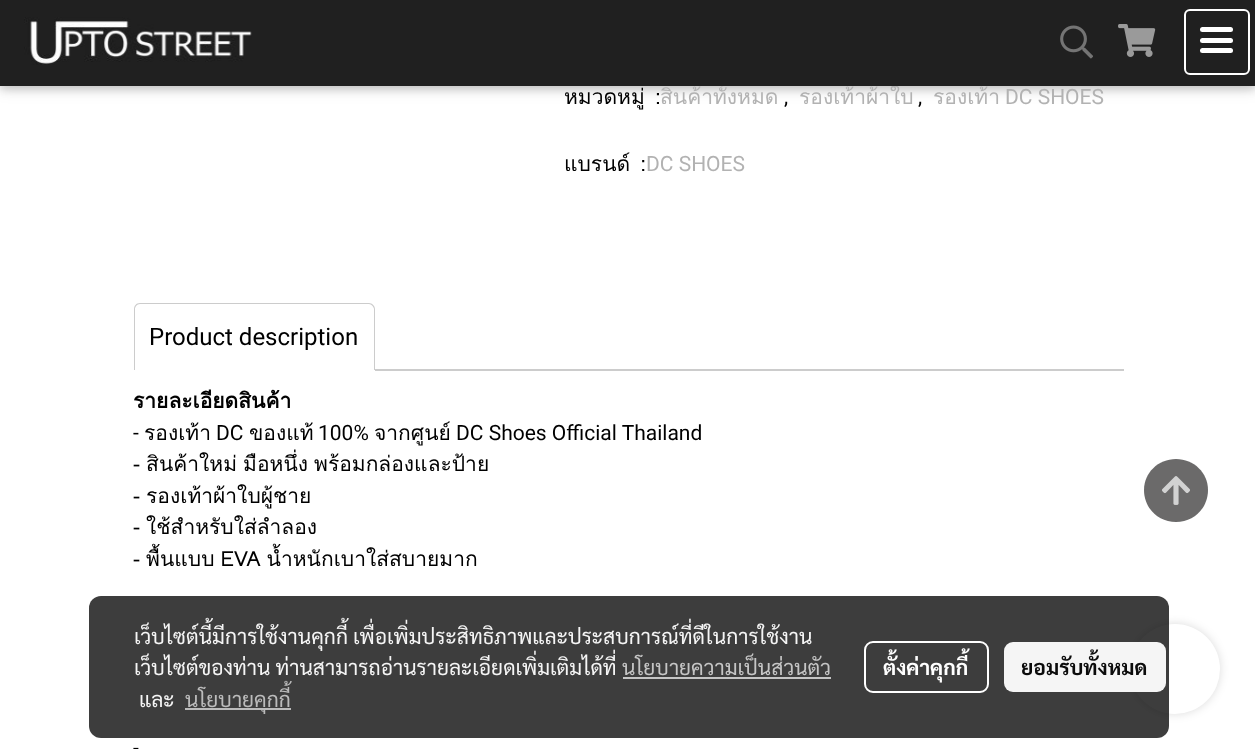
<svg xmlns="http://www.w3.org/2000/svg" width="1255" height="749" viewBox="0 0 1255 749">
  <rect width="100%" height="100%" fill="rgb(255,255,255)"/>
  <rect x="0" y="3" width="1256" height="86" fill="rgba(0,0,0,0.12)" filter="blur(7.5px)"/>
  <rect x="0" y="3" width="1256" height="86" fill="rgba(0,0,0,0.16)" filter="blur(4px)"/>
  <text x="564" y="104" word-spacing="3" font-family="Loma" font-size="21" fill="rgb(0,0,0)">หมวดหมู่ :</text>
  <g font-family="Loma" font-size="21" fill="rgb(178,178,178)">
    <text x="660" y="104">สินค้าทั้งหมด</text>
    <text x="799" y="104">รองเท้าผ้าใบ</text>
  </g>
  <rect x="0" y="0" width="1255" height="86" fill="rgb(32,32,32)"/>
  <image x="24" y="17" width="228" height="48" href="pic1.png"/>
  <image x="1060" y="25" width="33" height="34" href="pic2.png"/>
  <image x="1118" y="24" width="38" height="33" href="pic3.png"/>
  <rect x="1185" y="10" width="64" height="64" rx="5" fill="none" stroke="rgb(255,255,255)" stroke-width="2"/>
  <rect x="1200" y="38" width="33" height="5" rx="2.5" fill="rgb(255,255,255)"/>
  <rect x="1200" y="27" width="33" height="5" rx="2.5" fill="rgb(255,255,255)"/>
  <rect x="1200" y="48" width="33" height="5" rx="2.5" fill="rgb(255,255,255)"/>
  <g font-family="Roboto" font-size="21" fill="rgb(0,0,0)">
    <text x="784" y="104">,</text>
    <text x="918" y="104">,</text>
  </g>
  <text x="933" y="104" font-family="Loma" font-size="21" fill="rgb(178,178,178)">รองเท้า</text>
  <text x="1005" y="104" font-family="Roboto" font-size="21" fill="rgb(178,178,178)">DC SHOES</text>
  <text x="564" y="171" word-spacing="3" font-family="Loma" font-size="21" fill="rgb(0,0,0)">แบรนด์ :</text>
  <text x="646" y="171" font-family="Roboto" font-size="21" fill="rgb(178,178,178)">DC SHOES</text>
  <path d="M140 303H369C372 303 375 306 375 309V370H134V309C134 306 136 303 140 303ZM140 304H369C371 304 374 307 374 309V370H135V309C135 307 137 304 140 304Z" fill="rgb(204,204,204)" fill-rule="evenodd"/>
  <text x="149" y="345" font-family="Roboto" font-size="24" fill="rgb(0,0,0)">Product description</text>
  <rect x="375" y="369" width="749" height="2" fill="rgb(204,204,204)"/>
  <text x="133" y="408" font-family="Loma" font-size="21" font-weight="bold" fill="rgb(0,0,0)">รายละเอียดสินค้า</text>
  <text x="133" y="440" font-family="Roboto" font-size="21" fill="rgb(0,0,0)">-</text>
  <text x="144" y="440" font-family="Loma" font-size="21" fill="rgb(0,0,0)">รองเท้า</text>
  <text x="216" y="440" font-family="Roboto" font-size="21" fill="rgb(0,0,0)">DC</text>
  <text x="249" y="440" font-family="Loma" font-size="21" fill="rgb(0,0,0)">ของแท้</text>
  <text x="318" y="440" font-family="Roboto" font-size="21" fill="rgb(0,0,0)">100%</text>
  <text x="374" y="440" font-family="Loma" font-size="21" fill="rgb(0,0,0)">จากศูนย์</text>
  <text x="456" y="440" font-family="Roboto" font-size="21" fill="rgb(0,0,0)">DC Shoes Official Thailand</text>
  <g font-family="Loma" font-size="21" fill="rgb(0,0,0)">
    <text>
      <tspan x="133" y="471" word-spacing="-1">- สินค้าใหม่ มือหนึ่ง พร้อมกล่องและป้าย</tspan>
      <tspan x="133" y="503" word-spacing="-1">- รองเท้าผ้าใบผู้ชาย</tspan>
      <tspan x="133" y="534" word-spacing="-1">- ใช้สำหรับใส่ลำลอง</tspan>
      <tspan x="133" y="566" word-spacing="-1">- พื้นแบบ EVA น้ำหนักเบาใส่สบายมาก</tspan>
    </text>
  </g>
  <text x="133" y="755" font-family="Roboto" font-size="21" fill="rgb(0,0,0)">-</text>
  <path d="M1176 459C1158 459 1144 473 1144 490C1144 508 1158 522 1176 522C1194 522 1208 508 1208 490C1208 473 1194 459 1176 459Z" fill="rgb(107,106,106)"/>
  <image x="1162" y="476" width="28" height="29" href="pic4.png"/>
  <rect x="1130" y="624" width="90" height="90" rx="45" fill="rgba(0,0,0,0.14)" filter="blur(5px)"/>
  <circle cx="1175" cy="669" r="45" fill="rgb(255,255,255)"/>
  <rect x="89" y="596" width="1080" height="142" rx="12" fill="rgba(0,0,0,0.76)"/>
  <g font-family="Sarabun" font-size="21" fill="rgb(245,245,245)">
    <text>
      <tspan x="134" y="644">เว็บไซต์นี้มีการใช้งานคุกกี้ เพื่อเพิ่มประสิทธิภาพและประสบการณ์ที่ดีในการใช้งาน</tspan>
      <tspan x="134" y="675">เว็บไซต์ของท่าน ท่านสามารถอ่านรายละเอียดเพิ่มเติมได้ที่</tspan>
    </text>
  </g>
  <text x="622" y="675" font-family="Sarabun" font-size="21" fill="rgb(197,197,197)">นโยบายความเป็นส่วนตัว</text>
  <rect x="623" y="677" width="208" height="2" fill="rgb(197,197,197)"/>
  <text x="139" y="707" font-family="Sarabun" font-size="21" fill="rgb(245,245,245)">และ</text>
  <rect x="185" y="708" width="106" height="2" fill="rgba(194,194,194,0.95)"/>
  <text x="185" y="707" font-family="Sarabun" font-size="21" fill="rgb(187,187,187)">นโยบายคุกกี้</text>
  <rect x="865" y="642" width="123" height="50" rx="8" fill="none" stroke="rgb(255,255,255)" stroke-width="2"/>
  <text x="883" y="675" font-family="Sarabun" font-size="21" font-weight="bold" fill="rgb(255,255,255)">ตั้งค่าคุกกี้</text>
  <rect x="1004" y="642" width="162" height="50" rx="9" fill="rgba(255,255,255,0.95)"/>
  <text x="1021" y="675" font-family="Sarabun" font-size="21" font-weight="bold" fill="rgb(12,12,12)">ยอมรับทั้งหมด</text>
</svg>
